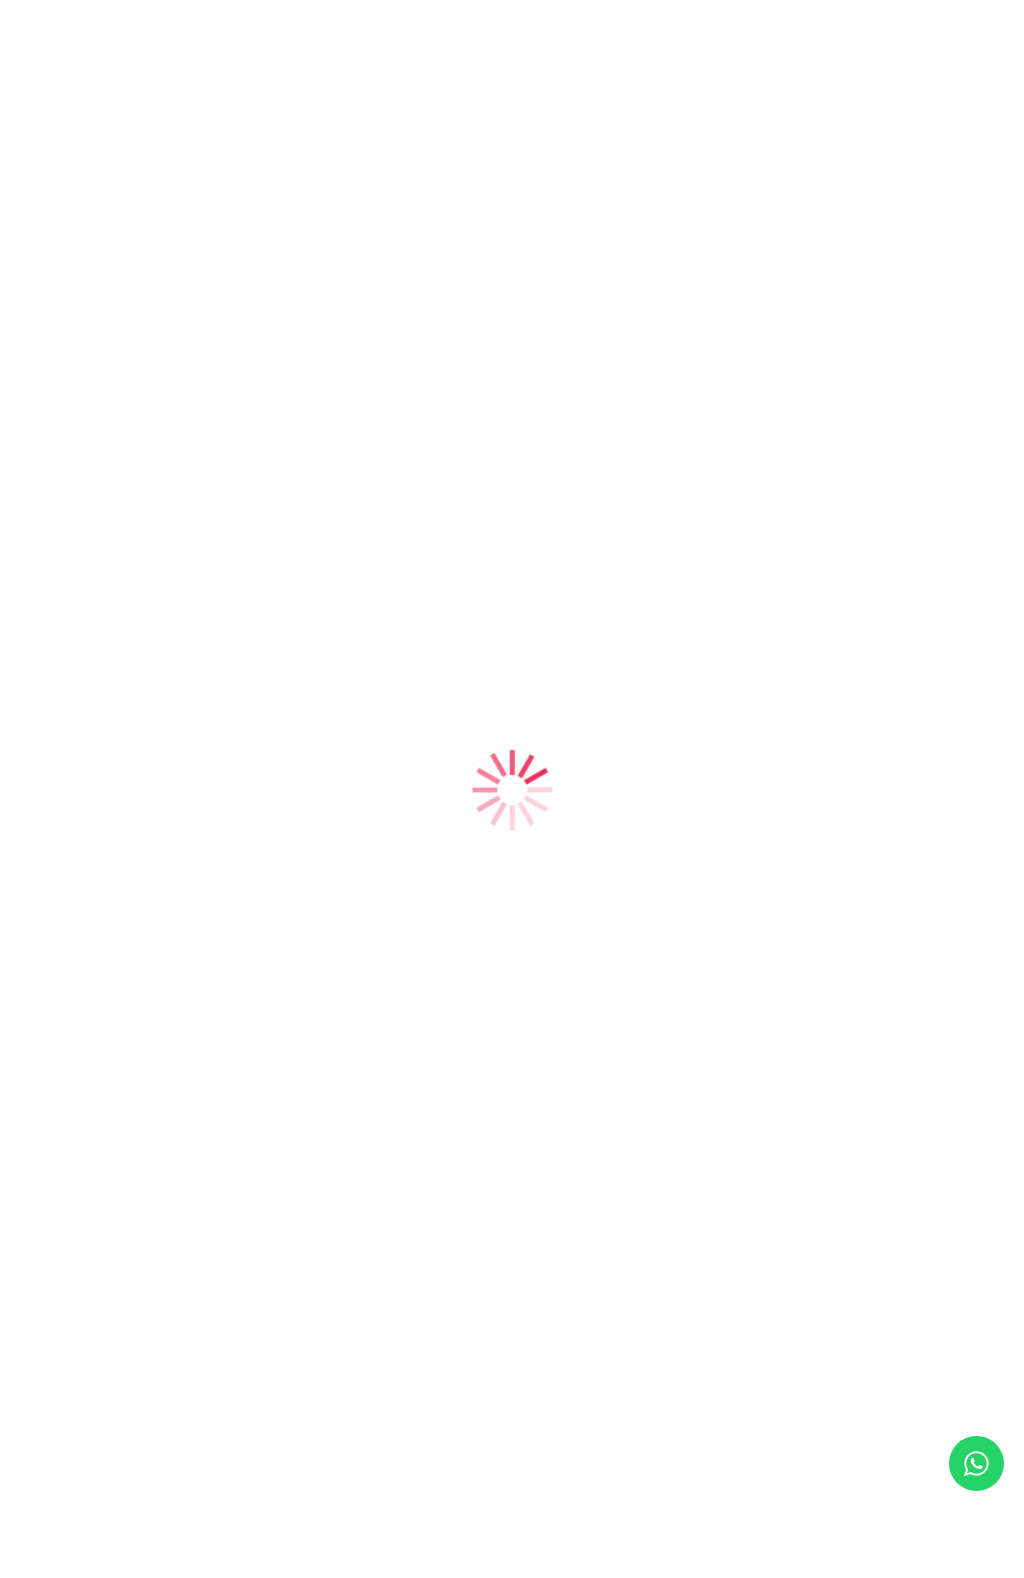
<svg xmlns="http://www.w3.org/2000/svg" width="1024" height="1578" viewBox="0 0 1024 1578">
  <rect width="100%" height="100%" fill="rgb(255,255,255)"/>
  <image x="472" y="749" width="81" height="82" href="pic1.png"/>
  <circle cx="976.5" cy="1463.5" r="27.5" fill="rgb(37,211,102)"/>
  <image x="964" y="1451" width="25" height="25" href="pic2.png"/>
</svg>
